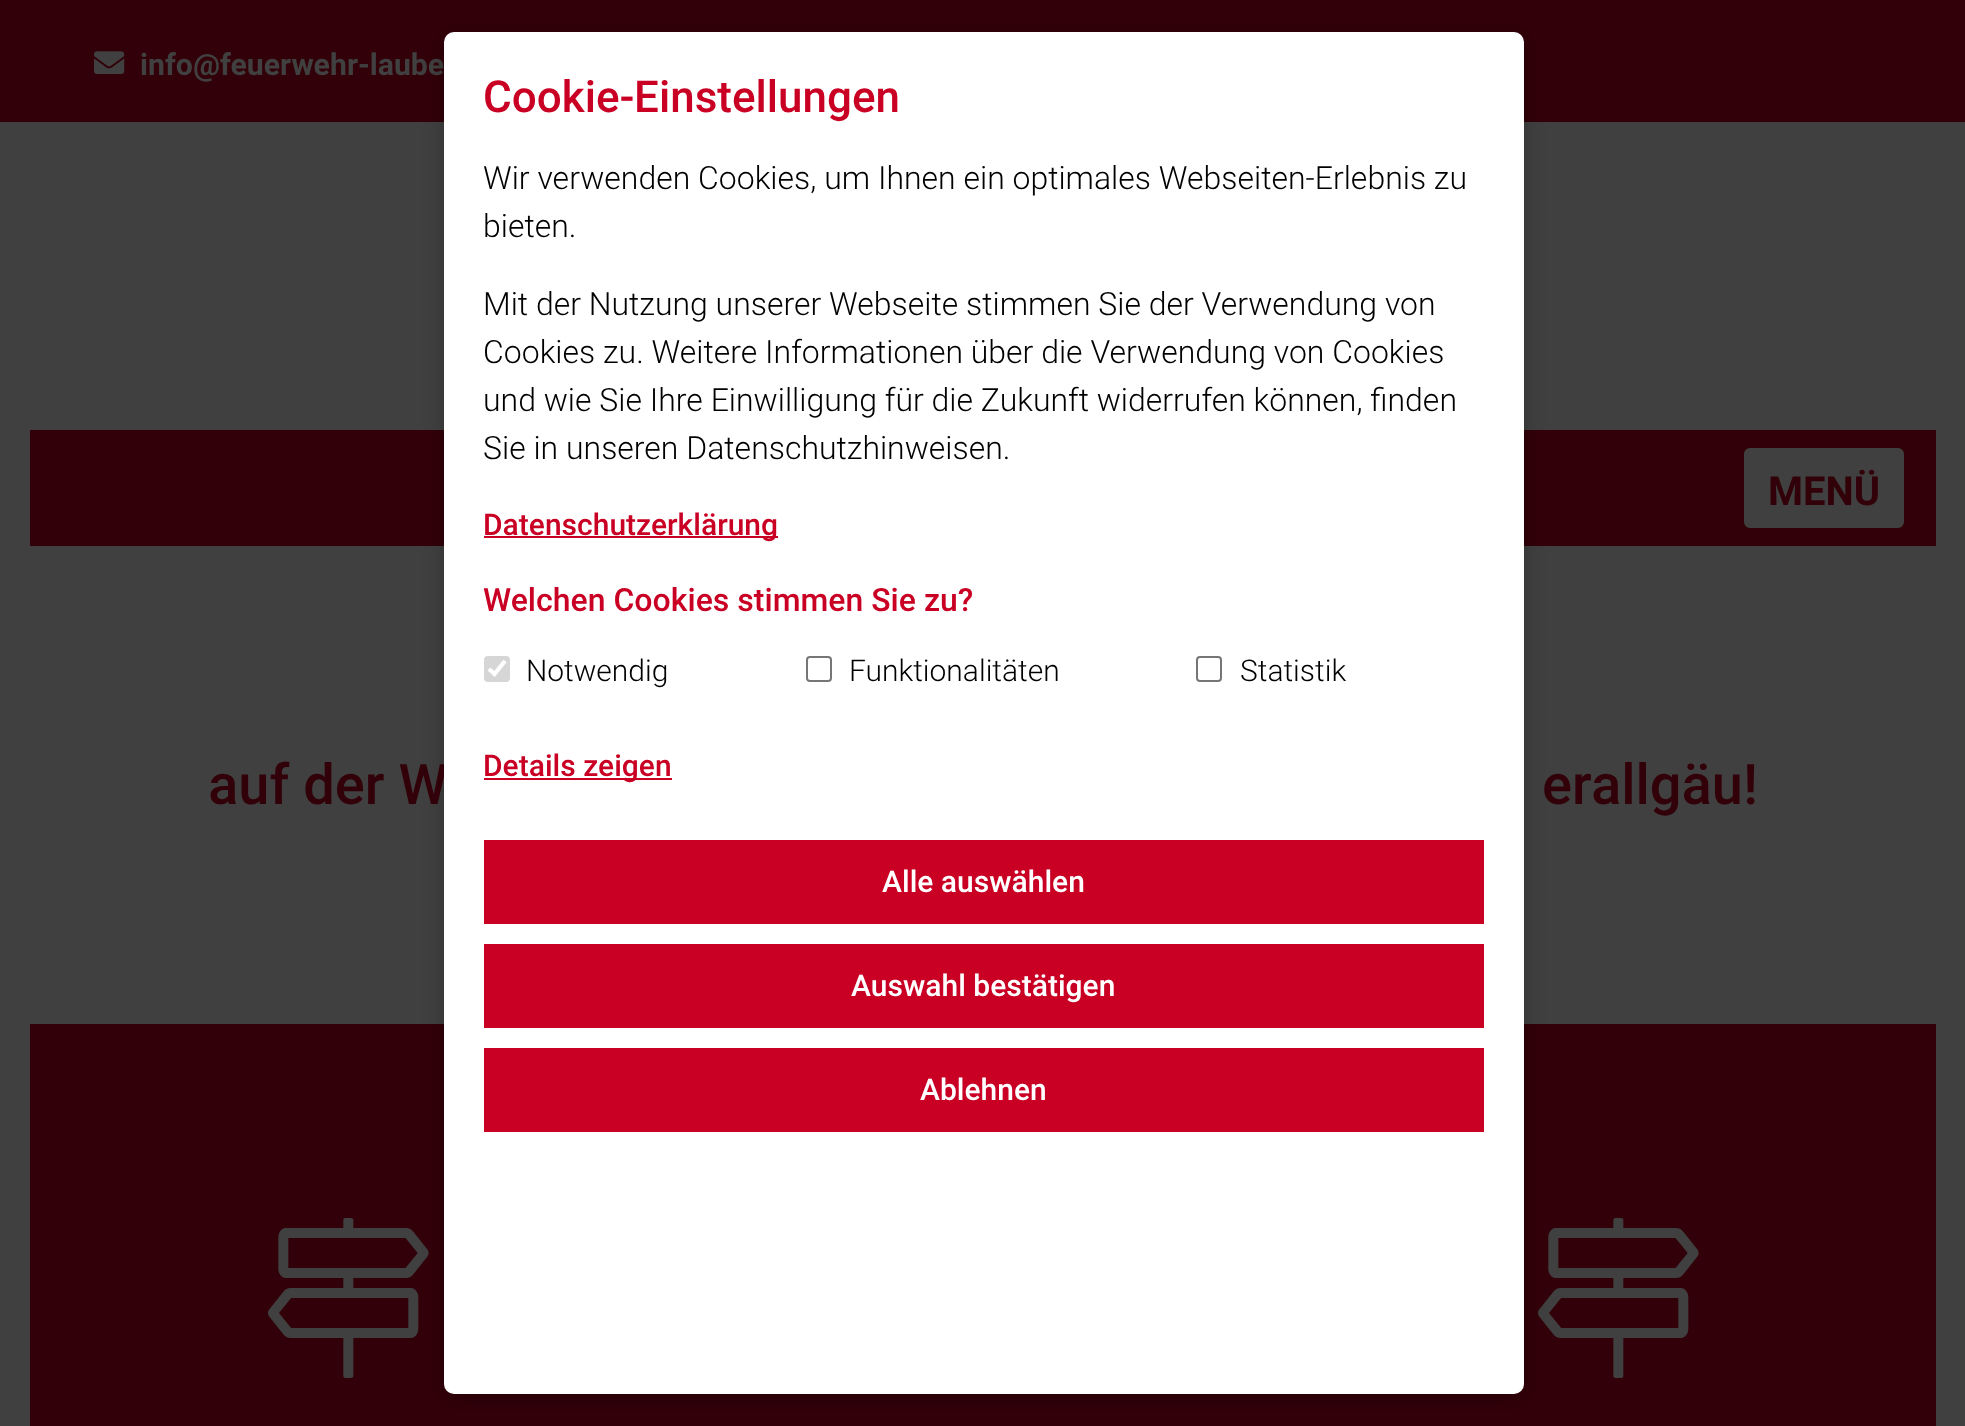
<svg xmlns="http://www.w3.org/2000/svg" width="1965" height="1426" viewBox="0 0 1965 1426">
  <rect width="100%" height="100%" fill="rgb(64,64,64)"/>
  <rect x="0" y="0" width="1965" height="122" fill="rgb(50,0,9)"/>
  <image x="94" y="51" width="31" height="23" href="pic1.png"/>
  <text x="140" y="75" font-family="Roboto" font-size="30.25" font-weight="bold" fill="rgb(64,64,64)">info@feuerwehr-laube</text>
  <rect x="30" y="430" width="1906" height="116" fill="rgb(50,0,9)"/>
  <rect x="1743" y="447" width="162" height="82" rx="7" fill="rgb(64,64,64)" stroke="rgb(50,0,9)" stroke-width="2"/>
  <text x="1768" y="505" font-family="Roboto" font-size="40" font-weight="bold" fill="rgb(50,0,9)">MENÜ</text>
  <rect x="30" y="1024" width="1906" height="402" fill="rgb(50,0,9)"/>
  <image x="268" y="1218" width="161" height="160" href="pic2.png"/>
  <image x="1538" y="1218" width="161" height="160" href="pic2.png"/>
  <rect x="444" y="36" width="1080" height="1362" rx="10" fill="rgba(0,0,0,0.25)" filter="blur(10px)"/>
  <text x="208" y="804" font-family="Roboto" font-size="56" font-weight="500" fill="rgb(50,0,9)">auf der W</text>
  <rect x="444" y="32" width="1080" height="1362" rx="10" fill="rgb(255,255,255)"/>
  <text x="483" y="112" font-family="Roboto" font-size="44" font-weight="500" fill="rgb(201,0,36)">Cookie-Einstellungen</text>
  <g font-family="Roboto" font-size="32" font-weight="300" fill="rgb(0,0,0)">
    <text>
      <tspan x="483" y="189">Wir verwenden Cookies, um Ihnen ein optimales Webseiten-Erlebnis zu</tspan>
      <tspan x="483" y="237">bieten.</tspan>
    </text>
    <text>
      <tspan x="483" y="315">Mit der Nutzung unserer Webseite stimmen Sie der Verwendung von</tspan>
      <tspan x="483" y="363">Cookies zu. Weitere Informationen über die Verwendung von Cookies</tspan>
      <tspan x="483" y="411">und wie Sie Ihre Einwilligung für die Zukunft widerrufen können, finden</tspan>
      <tspan x="483" y="459">Sie in unseren Datenschutzhinweisen.</tspan>
    </text>
  </g>
  <rect x="484" y="536" width="294" height="2" fill="rgb(201,0,36)"/>
  <text x="483" y="535" font-family="Roboto" font-size="30" font-weight="500" fill="rgb(201,0,36)">Datenschutzerklärung</text>
  <text x="483" y="611" font-family="Roboto" font-size="32" font-weight="500" fill="rgb(201,0,36)">Welchen Cookies stimmen Sie zu?</text>
  <rect x="484" y="656" width="26" height="26" rx="4" fill="rgb(214,214,214)"/>
  <path d="M489 669L494.5 674L505 661" fill="none" stroke="rgb(255,255,255)" stroke-width="4.2"/>
  <text x="526" y="681" font-family="Roboto" font-size="30" font-weight="300" fill="rgb(0,0,0)">Notwendig</text>
  <rect x="807" y="657" width="24" height="24" rx="3" fill="none" stroke="rgb(118,118,118)" stroke-width="2"/>
  <text x="849" y="681" font-family="Roboto" font-size="30" font-weight="300" fill="rgb(0,0,0)">Funktionalitäten</text>
  <rect x="1197" y="657" width="24" height="24" rx="3" fill="none" stroke="rgb(118,118,118)" stroke-width="2"/>
  <text x="1240" y="681" font-family="Roboto" font-size="30" font-weight="300" fill="rgb(0,0,0)">Statistik</text>
  <rect x="484" y="778" width="188" height="2" fill="rgb(201,0,36)"/>
  <text x="483" y="776" font-family="Roboto" font-size="30" font-weight="500" fill="rgb(201,0,36)">Details zeigen</text>
  <rect x="484" y="840" width="1000" height="84" fill="rgb(201,0,36)"/>
  <text x="882" y="892" font-family="Roboto" font-size="30" font-weight="500" fill="rgb(255,255,255)">Alle auswählen</text>
  <rect x="484" y="944" width="1000" height="84" fill="rgb(201,0,36)"/>
  <text x="851" y="996" font-family="Roboto" font-size="30" font-weight="500" fill="rgb(255,255,255)">Auswahl bestätigen</text>
  <rect x="484" y="1048" width="1000" height="84" fill="rgb(201,0,36)"/>
  <text x="920" y="1100" font-family="Roboto" font-size="30" font-weight="500" fill="rgb(255,255,255)">Ablehnen</text>
  <text x="1542" y="804" font-family="Roboto" font-size="56" font-weight="500" fill="rgb(50,0,9)">erallgäu!</text>
</svg>
